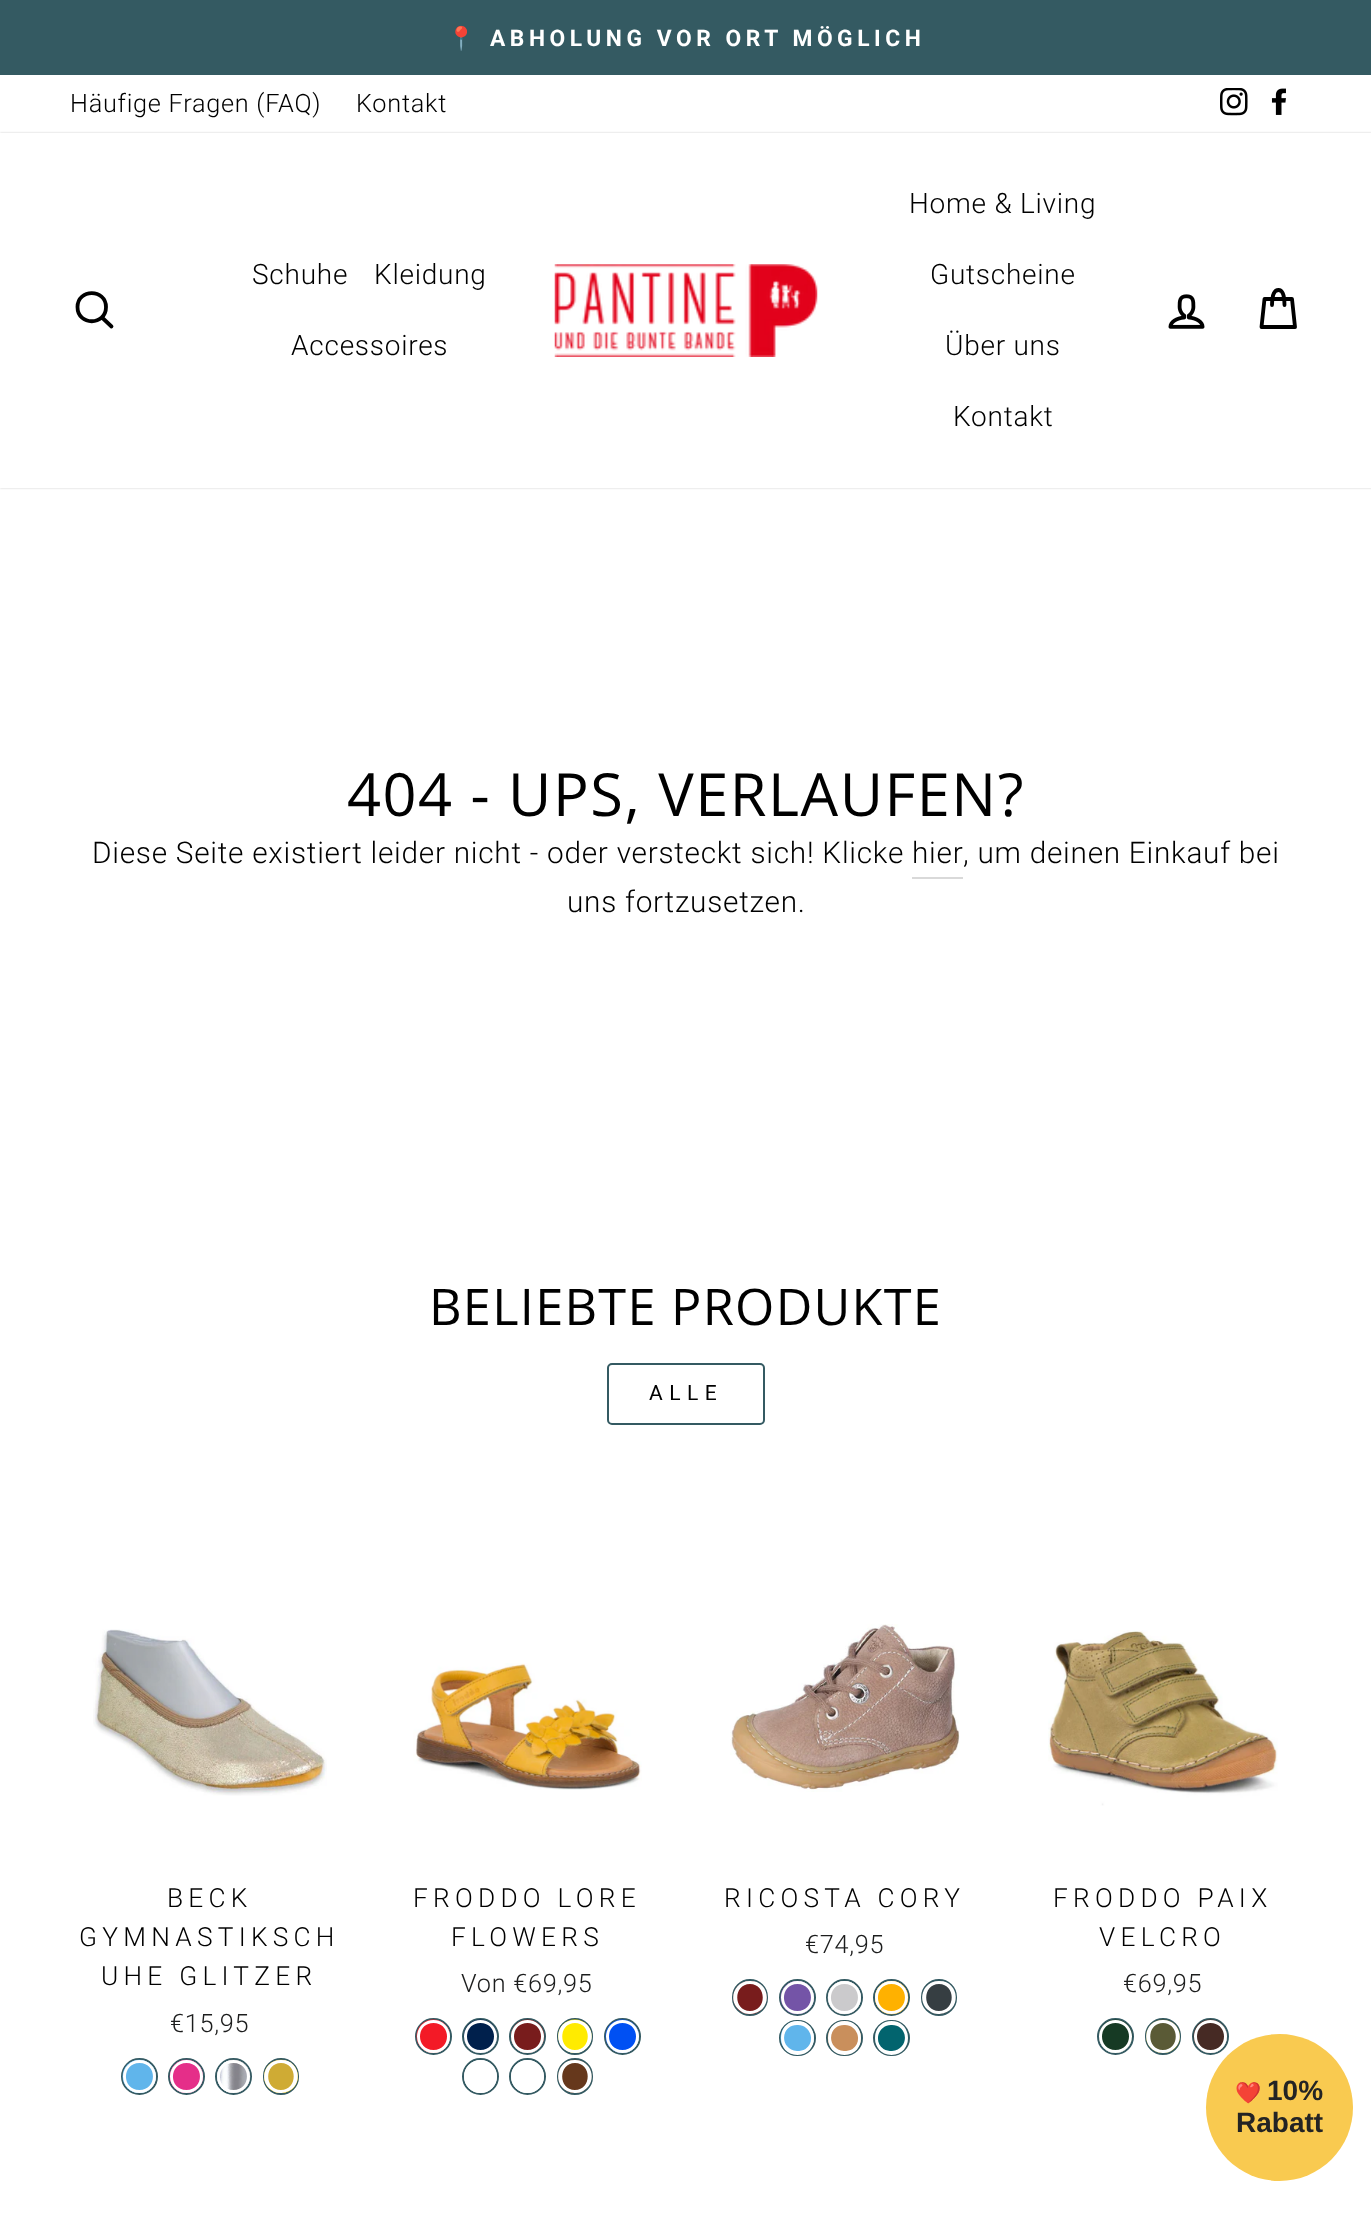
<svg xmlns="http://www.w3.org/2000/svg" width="1371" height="2215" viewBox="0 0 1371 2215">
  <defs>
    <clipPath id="clip1"><path d="M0 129H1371V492H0ZM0 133H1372V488H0Z" clip-rule="evenodd"/></clipPath>
  </defs>
  <rect width="100%" height="100%" fill="rgb(255,255,255)"/>
  <rect x="0" y="0" width="1371" height="75" fill="rgb(52,90,98)"/>
  <text x="447" y="46" font-family="Noto Color Emoji" font-size="22.75" font-weight="bold" letter-spacing="4.55" fill="rgb(255,255,255)">📍</text>
  <text x="490" y="46" font-family="Roboto" font-size="22.75" font-weight="bold" letter-spacing="4.55" fill="rgb(255,255,255)">ABHOLUNG VOR ORT MÖGLICH</text>
  <g font-family="Roboto" font-size="25.25" font-weight="300" letter-spacing="0.75" fill="rgb(0,0,0)">
    <text x="70" y="112">Häufige Fragen (FAQ)</text>
    <text x="356" y="112">Kontakt</text>
  </g>
  <image x="1220" y="88" width="28" height="28" href="pic1.png"/>
  <image x="1271" y="88" width="15" height="27" href="pic2.png"/>
  <g clip-path="url(#clip1)">
    <rect x="0" y="133" width="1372" height="355" fill="rgba(0,0,0,0.2)" filter="blur(1px)"/>
  </g>
  <path d="M106 307C106 326 77.5 326 77.5 307C77.5 288.5 106 288.5 106 307ZM111.5 326.5L102 317.5" fill="none" stroke="rgb(0,0,0)" stroke-width="3.8" stroke-linecap="round" stroke-linejoin="round"/>
  <g font-family="Roboto" font-size="28" font-weight="300" letter-spacing="0.75" fill="rgb(0,0,0)">
    <text x="252" y="284">Schuhe</text>
    <text x="374" y="284">Kleidung</text>
    <text x="291" y="355">Accessoires</text>
  </g>
  <image x="554" y="264" width="264" height="93" href="pic3.png"/>
  <g font-family="Roboto" font-size="28" font-weight="300" letter-spacing="0.75" fill="rgb(0,0,0)">
    <text x="909" y="213">Home &amp; Living</text>
    <text x="930" y="284">Gutscheine</text>
    <text x="945" y="355">Über uns</text>
    <text x="953" y="426">Kontakt</text>
  </g>
  <image x="1168" y="294" width="37" height="35" href="pic4.png"/>
  <path d="M1272 305C1272 293 1275 290 1278.5 290C1281.5 290 1284.5 293 1284.5 305M1264.5 299H1292L1295 327H1261.5Z" fill="none" stroke="rgb(0,0,0)" stroke-width="3.8" stroke-linecap="round" stroke-linejoin="round"/>
  <text x="347" y="816" font-family="Open Sans" font-size="59.5" letter-spacing="1.5" fill="rgb(0,0,0)">404 - UPS, VERLAUFEN?</text>
  <g font-family="Roboto" font-size="29.75" font-weight="300" letter-spacing="0.75" fill="rgb(0,0,0)">
    <text x="92" y="863">Diese Seite existiert leider nicht - oder versteckt sich! Klicke hier</text>
    <text x="963" y="863">, um deinen Einkauf bei</text>
  </g>
  <rect x="912" y="877" width="51" height="2" fill="rgb(217,217,217)"/>
  <text x="567" y="912" font-family="Roboto" font-size="29.75" font-weight="300" letter-spacing="0.75" fill="rgb(0,0,0)">uns fortzusetzen.</text>
  <text x="429" y="1325" font-family="Open Sans" font-size="50.5" letter-spacing="1.25" fill="rgb(0,0,0)">BELIEBTE PRODUKTE</text>
  <rect x="608" y="1364" width="156" height="60" rx="4" fill="none" stroke="rgb(52,90,98)" stroke-width="2"/>
  <text x="649" y="1400" font-family="Roboto" font-size="21" letter-spacing="6.5" fill="rgb(0,0,0)">ALLE</text>
  <image x="93" y="1629" width="234" height="167" href="pic5.png"/>
  <g font-family="Roboto" font-size="26.25" font-weight="300" letter-spacing="5.25" fill="rgb(0,0,0)">
    <text x="167" y="1907">BECK</text>
    <text x="79" y="1946">GYMNASTIKSCH</text>
    <text x="101" y="1985">UHE GLITZER</text>
  </g>
  <text x="170" y="2032" font-family="Roboto" font-size="25.25" font-weight="300" letter-spacing="0.75" fill="rgb(28,29,29)">€15,95</text>
  <circle cx="139.5" cy="2076.5" r="17.5" fill="none" stroke="rgb(52,90,98)" stroke-width="2"/>
  <image x="122" y="2059" width="34" height="34" href="pic6.png"/>
  <path d="M139.5 2060C130.5 2060 123 2067.5 123 2076.5C123 2085.5 130.5 2093 139.5 2093C148.5 2093 156 2085.5 156 2076.5C156 2067.5 148.5 2060 139.5 2060ZM139.5 2063C121.5 2063 121.5 2090 139.5 2090C157.5 2090 157.5 2063 139.5 2063Z" fill="rgb(255,255,255)" fill-rule="evenodd"/>
  <circle cx="186.5" cy="2076.5" r="17.5" fill="none" stroke="rgb(52,90,98)" stroke-width="2"/>
  <image x="169" y="2059" width="34" height="34" href="pic7.png"/>
  <path d="M186.5 2060C177.5 2060 170 2067.5 170 2076.5C170 2085.5 177.5 2093 186.5 2093C195.5 2093 203 2085.5 203 2076.5C203 2067.5 195.5 2060 186.5 2060ZM186.5 2063C168.5 2063 168.5 2090 186.5 2090C204.5 2090 204.5 2063 186.5 2063Z" fill="rgb(255,255,255)" fill-rule="evenodd"/>
  <circle cx="233.5" cy="2076.5" r="17.5" fill="none" stroke="rgb(52,90,98)" stroke-width="2"/>
  <image x="217" y="2059" width="34" height="34" href="pic8.png"/>
  <path d="M233.5 2060C224.5 2060 217 2067.5 217 2076.5C217 2085.5 224.5 2093 233.5 2093C242.5 2093 250 2085.5 250 2076.5C250 2067.5 242.5 2060 233.5 2060ZM233.5 2063C215.5 2063 215.5 2090 233.5 2090C251.5 2090 251.5 2063 233.5 2063Z" fill="rgb(255,255,255)" fill-rule="evenodd"/>
  <rect x="264" y="2059" width="34" height="35" rx="17" fill="none" stroke="rgb(52,90,98)" stroke-width="2"/>
  <rect x="264" y="2060" width="34" height="33" rx="16.5" fill="rgb(255,215,0)"/>
  <image x="264" y="2059" width="34" height="34" href="pic9.png"/>
  <path d="M280.5 2060C264.5 2060 258 2081 271.5 2090C274 2092 278 2093.5 281.5 2093C304.5 2091 302 2060 281.5 2060ZM281 2063C264 2063 264 2090 281 2090C298 2090 298 2063 281 2063Z" fill="rgb(255,255,255)" fill-rule="evenodd"/>
  <image x="413" y="1663" width="229" height="127" href="pic10.png"/>
  <g font-family="Roboto" font-size="26.25" font-weight="300" letter-spacing="5.25" fill="rgb(0,0,0)">
    <text x="413" y="1907">FRODDO LORE</text>
    <text x="451" y="1946">FLOWERS</text>
  </g>
  <text x="461" y="1992" font-family="Roboto" font-size="25.25" font-weight="300" letter-spacing="0.75" fill="rgb(28,29,29)">Von €69,95</text>
  <circle cx="433.5" cy="2036.5" r="17.5" fill="none" stroke="rgb(52,90,98)" stroke-width="2"/>
  <image x="416" y="2019" width="34" height="34" href="pic11.png"/>
  <path d="M433.5 2020C424.5 2020 417 2027.5 417 2036.5C417 2045.5 424.5 2053 433.5 2053C442.5 2053 450 2045.5 450 2036.5C450 2027.5 442.5 2020 433.5 2020ZM433.5 2023C415.5 2023 415.5 2050 433.5 2050C451.5 2050 451.5 2023 433.5 2023Z" fill="rgb(255,255,255)" fill-rule="evenodd"/>
  <circle cx="480.5" cy="2036.5" r="17.5" fill="none" stroke="rgb(52,90,98)" stroke-width="2"/>
  <image x="463" y="2019" width="34" height="34" href="pic12.png"/>
  <path d="M480.5 2020C471.5 2020 464 2027.5 464 2036.5C464 2045.5 471.5 2053 480.5 2053C489.5 2053 497 2045.5 497 2036.5C497 2027.5 489.5 2020 480.5 2020ZM480.5 2023C462.5 2023 462.5 2050 480.5 2050C498.5 2050 498.5 2023 480.5 2023Z" fill="rgb(255,255,255)" fill-rule="evenodd"/>
  <circle cx="527.5" cy="2036.5" r="17.5" fill="none" stroke="rgb(52,90,98)" stroke-width="2"/>
  <image x="511" y="2019" width="34" height="34" href="pic13.png"/>
  <path d="M527.5 2020C518.5 2020 511 2027.5 511 2036.5C511 2045.5 518.5 2053 527.5 2053C536.5 2053 544 2045.5 544 2036.5C544 2027.5 536.5 2020 527.5 2020ZM527.5 2023C509.5 2023 509.5 2050 527.5 2050C545.5 2050 545.5 2023 527.5 2023Z" fill="rgb(255,255,255)" fill-rule="evenodd"/>
  <rect x="558" y="2019" width="34" height="35" rx="17" fill="none" stroke="rgb(52,90,98)" stroke-width="2"/>
  <image x="558" y="2019" width="34" height="34" href="pic14.png"/>
  <path d="M574.5 2020C554 2020 551.5 2051 574.5 2053C578 2053.5 582 2052 584.5 2050C598 2041 591.5 2020 575.5 2020ZM575 2023C558 2023 558 2050 575 2050C592 2050 592 2023 575 2023Z" fill="rgb(255,255,255)" fill-rule="evenodd"/>
  <circle cx="622.5" cy="2036.5" r="17.5" fill="none" stroke="rgb(52,90,98)" stroke-width="2"/>
  <image x="605" y="2019" width="34" height="34" href="pic15.png"/>
  <path d="M622.5 2020C613.5 2020 606 2027.5 606 2036.5C606 2045.5 613.5 2053 622.5 2053C631.5 2053 639 2045.5 639 2036.5C639 2027.5 631.5 2020 622.5 2020ZM622.5 2023C604.5 2023 604.5 2050 622.5 2050C640.5 2050 640.5 2023 622.5 2023Z" fill="rgb(255,255,255)" fill-rule="evenodd"/>
  <circle cx="480.5" cy="2076.5" r="17.5" fill="none" stroke="rgb(52,90,98)" stroke-width="2"/>
  <path d="M480.5 2060C471.5 2060 464 2067.5 464 2076.5C464 2085.5 471.5 2093 480.5 2093C489.5 2093 497 2085.5 497 2076.5C497 2067.5 489.5 2060 480.5 2060ZM480.5 2063C462.5 2063 462.5 2090 480.5 2090C498.5 2090 498.5 2063 480.5 2063Z" fill="rgb(255,255,255)" fill-rule="evenodd"/>
  <circle cx="527.5" cy="2076.5" r="17.5" fill="none" stroke="rgb(52,90,98)" stroke-width="2"/>
  <path d="M527.5 2060C518.5 2060 511 2067.5 511 2076.5C511 2085.5 518.5 2093 527.5 2093C536.5 2093 544 2085.5 544 2076.5C544 2067.5 536.5 2060 527.5 2060ZM527.5 2063C509.5 2063 509.5 2090 527.5 2090C545.5 2090 545.5 2063 527.5 2063Z" fill="rgb(255,255,255)" fill-rule="evenodd"/>
  <rect x="558" y="2059" width="34" height="35" rx="17" fill="none" stroke="rgb(52,90,98)" stroke-width="2"/>
  <image x="558" y="2059" width="34" height="34" href="pic16.png"/>
  <path d="M574.5 2060C554 2060 551.5 2091 574.5 2093C578 2093.5 582 2092 584.5 2090C598 2081 591.5 2060 575.5 2060ZM575 2063C558 2063 558 2090 575 2090C592 2090 592 2063 575 2063Z" fill="rgb(255,255,255)" fill-rule="evenodd"/>
  <image x="730" y="1624" width="230" height="168" href="pic17.png"/>
  <text x="724" y="1907" font-family="Roboto" font-size="26.25" font-weight="300" letter-spacing="5.25" fill="rgb(0,0,0)">RICOSTA CORY</text>
  <text x="805" y="1953" font-family="Roboto" font-size="25.25" font-weight="300" letter-spacing="0.75" fill="rgb(28,29,29)">€74,95</text>
  <rect x="733" y="1980" width="34" height="35" rx="17" fill="none" stroke="rgb(52,90,98)" stroke-width="2"/>
  <image x="733" y="1981" width="34" height="34" href="pic18.png"/>
  <path d="M749.5 1981C733.5 1981 727 2002 740.5 2011C743 2013 747 2014.5 750.5 2014C773.5 2012 771 1981 750.5 1981ZM750 1984C733 1984 733 2011 750 2011C767 2011 767 1984 750 1984Z" fill="rgb(255,255,255)" fill-rule="evenodd"/>
  <circle cx="797.5" cy="1997.5" r="17.5" fill="none" stroke="rgb(52,90,98)" stroke-width="2"/>
  <image x="780" y="1981" width="34" height="34" href="pic19.png"/>
  <path d="M797.5 1981C788.5 1981 781 1988.5 781 1997.5C781 2006.5 788.5 2014 797.5 2014C806.5 2014 814 2006.5 814 1997.5C814 1988.5 806.5 1981 797.5 1981ZM797.5 1984C779.5 1984 779.5 2011 797.5 2011C815.5 2011 815.5 1984 797.5 1984Z" fill="rgb(255,255,255)" fill-rule="evenodd"/>
  <circle cx="844.5" cy="1997.5" r="17.5" fill="none" stroke="rgb(52,90,98)" stroke-width="2"/>
  <image x="827" y="1981" width="34" height="34" href="pic20.png"/>
  <path d="M844.5 1981C835.5 1981 828 1988.5 828 1997.5C828 2006.5 835.5 2014 844.5 2014C853.5 2014 861 2006.5 861 1997.5C861 1988.5 853.5 1981 844.5 1981ZM844.5 1984C826.5 1984 826.5 2011 844.5 2011C862.5 2011 862.5 1984 844.5 1984Z" fill="rgb(255,255,255)" fill-rule="evenodd"/>
  <circle cx="891.5" cy="1997.5" r="17.5" fill="none" stroke="rgb(52,90,98)" stroke-width="2"/>
  <image x="875" y="1981" width="34" height="34" href="pic21.png"/>
  <path d="M891.5 1981C882.5 1981 875 1988.5 875 1997.5C875 2006.5 882.5 2014 891.5 2014C900.5 2014 908 2006.5 908 1997.5C908 1988.5 900.5 1981 891.5 1981ZM891.5 1984C873.5 1984 873.5 2011 891.5 2011C909.5 2011 909.5 1984 891.5 1984Z" fill="rgb(255,255,255)" fill-rule="evenodd"/>
  <rect x="922" y="1980" width="34" height="35" rx="17" fill="none" stroke="rgb(52,90,98)" stroke-width="2"/>
  <image x="922" y="1981" width="34" height="34" href="pic22.png"/>
  <path d="M938.5 1981C922.5 1981 916 2002 929.5 2011C932 2013 936 2014.5 939.5 2014C962.5 2012 960 1981 939.5 1981ZM939 1984C922 1984 922 2011 939 2011C956 2011 956 1984 939 1984Z" fill="rgb(255,255,255)" fill-rule="evenodd"/>
  <rect x="780" y="2021" width="35" height="34" rx="17" fill="none" stroke="rgb(52,90,98)" stroke-width="2"/>
  <image x="780" y="2021" width="34" height="34" href="pic23.png"/>
  <path d="M797.5 2021C775.5 2021 775.5 2055 797.5 2055C819.5 2055 819.5 2021 797.5 2021ZM797 2025C780.5 2025 779 2049.5 797 2051C800 2051 803 2050.5 805.5 2049C816 2041.5 810.5 2025 798 2025Z" fill="rgb(255,255,255)" fill-rule="evenodd"/>
  <rect x="827" y="2021" width="35" height="34" rx="17" fill="none" stroke="rgb(52,90,98)" stroke-width="2"/>
  <image x="827" y="2021" width="34" height="34" href="pic24.png"/>
  <path d="M844.5 2021C822.5 2021 822.5 2055 844.5 2055C866.5 2055 866.5 2021 844.5 2021ZM844 2025C827.5 2025 826 2049.5 844 2051C847 2051 850 2050.5 852.5 2049C863 2041.5 857.5 2025 845 2025Z" fill="rgb(255,255,255)" fill-rule="evenodd"/>
  <rect x="874" y="2021" width="35" height="34" rx="17" fill="none" stroke="rgb(52,90,98)" stroke-width="2"/>
  <image x="875" y="2021" width="34" height="34" href="pic25.png"/>
  <path d="M891.5 2021C869.5 2021 869.5 2055 891.5 2055C913.5 2055 913.5 2021 891.5 2021ZM891 2025C878.5 2025 873 2041.5 883.5 2049C886 2050.5 889 2051 892 2051C910 2049.5 908.5 2025 892 2025Z" fill="rgb(255,255,255)" fill-rule="evenodd"/>
  <image x="1048" y="1630" width="230" height="176" href="pic26.png"/>
  <g font-family="Roboto" font-size="26.25" font-weight="300" letter-spacing="5.25" fill="rgb(0,0,0)">
    <text x="1053" y="1907">FRODDO PAIX</text>
    <text x="1099" y="1946">VELCRO</text>
  </g>
  <text x="1123" y="1992" font-family="Roboto" font-size="25.25" font-weight="300" letter-spacing="0.75" fill="rgb(28,29,29)">€69,95</text>
  <circle cx="1115.5" cy="2036.5" r="17.5" fill="none" stroke="rgb(52,90,98)" stroke-width="2"/>
  <image x="1099" y="2019" width="34" height="34" href="pic27.png"/>
  <path d="M1115.5 2020C1106.5 2020 1099 2027.5 1099 2036.5C1099 2045.5 1106.5 2053 1115.5 2053C1124.5 2053 1132 2045.5 1132 2036.5C1132 2027.5 1124.5 2020 1115.5 2020ZM1115.5 2023C1097.5 2023 1097.5 2050 1115.5 2050C1133.5 2050 1133.5 2023 1115.5 2023Z" fill="rgb(255,255,255)" fill-rule="evenodd"/>
  <rect x="1146" y="2019" width="34" height="35" rx="17" fill="none" stroke="rgb(52,90,98)" stroke-width="2"/>
  <rect x="1146" y="2020" width="34" height="33" rx="16.5" fill="rgb(128,128,0)"/>
  <image x="1146" y="2019" width="34" height="34" href="pic28.png"/>
  <path d="M1162.5 2020C1142 2020 1139.5 2051 1162.5 2053C1166 2053.5 1170 2052 1172.5 2050C1186 2041 1179.5 2020 1163.5 2020ZM1163 2023C1146 2023 1146 2050 1163 2050C1180 2050 1180 2023 1163 2023Z" fill="rgb(255,255,255)" fill-rule="evenodd"/>
  <circle cx="1210.5" cy="2036.5" r="17.5" fill="none" stroke="rgb(52,90,98)" stroke-width="2"/>
  <image x="1193" y="2019" width="34" height="34" href="pic29.png"/>
  <path d="M1210.5 2020C1201.5 2020 1194 2027.5 1194 2036.5C1194 2045.5 1201.5 2053 1210.5 2053C1219.5 2053 1227 2045.5 1227 2036.5C1227 2027.5 1219.5 2020 1210.5 2020ZM1210.5 2023C1192.5 2023 1192.5 2050 1210.5 2050C1228.5 2050 1228.5 2023 1210.5 2023Z" fill="rgb(255,255,255)" fill-rule="evenodd"/>
  <circle cx="1279.5" cy="2107.5" r="73.5" fill="rgb(249,202,80)"/>
  <text x="1235" y="2100" font-family="Noto Color Emoji" font-size="21" font-weight="bold" fill="rgb(36,36,36)">❤️</text>
  <g font-family="Liberation Sans" font-size="28" font-weight="bold" fill="rgb(36,36,36)">
    <text x="1267" y="2100">10%</text>
    <text x="1236" y="2132">Rabatt</text>
  </g>
</svg>
